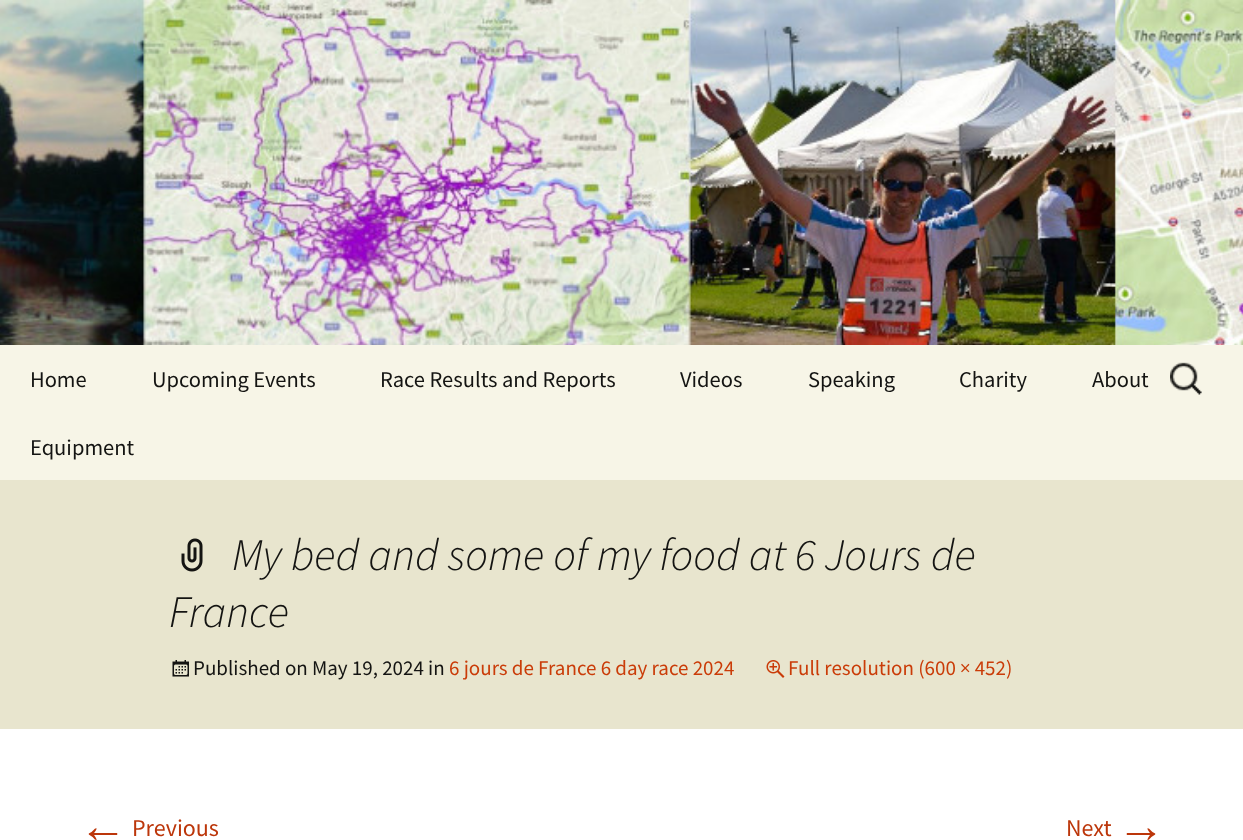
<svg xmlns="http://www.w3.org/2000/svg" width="1243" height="840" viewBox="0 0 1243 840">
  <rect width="100%" height="100%" fill="rgb(255,255,255)"/>
  <image x="0" y="0" width="1243" height="345" href="pic1.png"/>
  <rect x="0" y="345" width="1243" height="135" fill="rgb(247,245,231)"/>
  <g font-family="Source Sans Pro" font-size="22.5" fill="rgb(20,20,18)">
    <text x="30" y="387">Home</text>
    <text x="152" y="387">Upcoming Events</text>
    <text x="380" y="387">Race Results and Reports</text>
    <text x="680" y="387">Videos</text>
    <text x="808" y="387">Speaking</text>
    <text x="959" y="387">Charity</text>
    <text x="1092" y="387">About</text>
    <text x="30" y="455">Equipment</text>
  </g>
  <image x="1170" y="362" width="32" height="33" href="pic2.png"/>
  <rect x="0" y="480" width="1243" height="249" fill="rgb(232,229,206)"/>
  <image x="181" y="538" width="22" height="34" href="pic3.png"/>
  <g font-family="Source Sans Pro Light" font-size="45" font-weight="300" font-style="italic" fill="rgb(20,20,18)">
    <text x="232" y="570">My bed and some of my food at 6 Jours de</text>
    <text x="169" y="627">France</text>
  </g>
  <image x="172" y="660" width="17" height="17" href="pic4.png"/>
  <text x="193" y="675" font-family="Source Sans Pro" font-size="21" fill="rgb(20,20,18)">Published on May 19, 2024 in</text>
  <text x="449" y="675" font-family="Source Sans Pro" font-size="21" fill="rgb(202,60,8)">6 jours de France 6 day race 2024</text>
  <image x="766" y="660" width="19" height="18" href="pic5.png"/>
  <text x="788" y="675" font-family="Source Sans Pro" font-size="21" fill="rgb(202,60,8)">Full resolution (600 × 452)</text>
  <text x="79" y="842" font-family="Liberation Sans" font-size="48" fill="rgb(188,54,10)">←</text>
  <g font-family="Source Sans Pro" font-size="24" fill="rgb(188,54,10)">
    <text x="132" y="836">Previous</text>
    <text x="1066" y="836">Next</text>
  </g>
  <text x="1117" y="842" font-family="Liberation Sans" font-size="48" fill="rgb(188,54,10)">→</text>
</svg>
